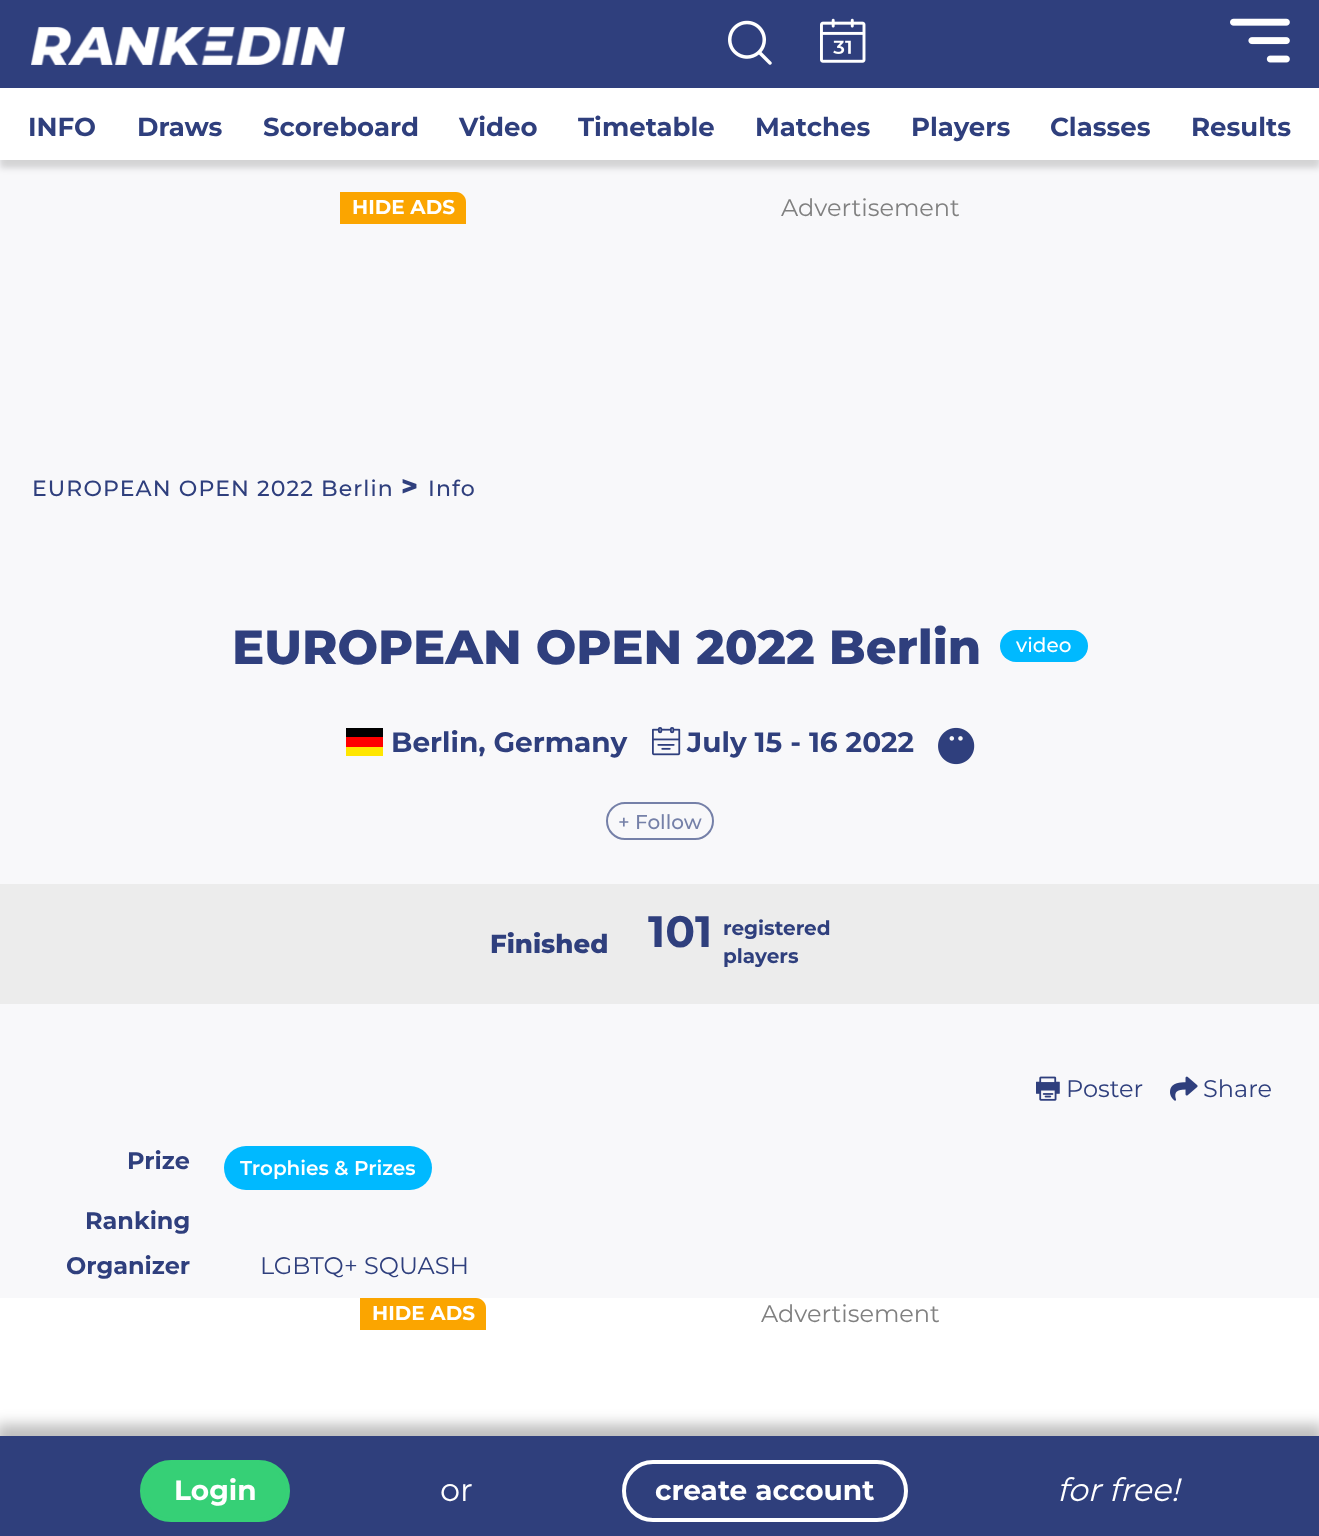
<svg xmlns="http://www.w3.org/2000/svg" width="1319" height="1536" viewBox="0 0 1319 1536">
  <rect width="100%" height="100%" fill="rgb(248,248,250)"/>
  <rect x="0" y="0" width="1319" height="88" fill="rgb(47,63,125)"/>
  <image x="31" y="27" width="314" height="38" href="pic1.png"/>
  <image x="728" y="20" width="44" height="45" href="pic2.png"/>
  <image x="820" y="18" width="46" height="45" href="pic3.png"/>
  <image x="1230" y="18" width="60" height="45" href="pic4.png"/>
  <rect x="0" y="96" width="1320" height="72" fill="rgba(0,0,0,0.15)" filter="blur(3px)"/>
  <rect x="0" y="88" width="1319" height="72" fill="rgb(255,255,255)"/>
  <g font-family="Montserrat" font-size="26" font-weight="bold" fill="rgb(47,63,125)">
    <text x="28" y="136">INFO</text>
    <text x="137" y="136">Draws</text>
    <text x="263" y="136">Scoreboard</text>
    <text x="459" y="136">Video</text>
    <text x="578" y="136">Timetable</text>
    <text x="755" y="136">Matches</text>
    <text x="911" y="136">Players</text>
    <text x="1050" y="136">Classes</text>
    <text x="1191" y="136">Results</text>
  </g>
  <path d="M340 192H456C461.5 192 466 196.5 466 202V224H340Z" fill="rgb(251,165,0)"/>
  <text x="352" y="214" font-family="Montserrat" font-size="20" font-weight="bold" fill="rgb(255,255,255)">HIDE ADS</text>
  <text x="781" y="216" font-family="Montserrat" font-size="24" fill="rgb(128,128,128)">Advertisement</text>
  <rect x="0" y="1298" width="1319" height="138" fill="rgb(255,255,255)"/>
  <path d="M360 1298H476C481.5 1298 486 1302.5 486 1308V1330H360Z" fill="rgb(251,165,0)"/>
  <text x="372" y="1320" font-family="Montserrat" font-size="20" font-weight="bold" fill="rgb(255,255,255)">HIDE ADS</text>
  <text x="761" y="1322" font-family="Montserrat" font-size="24" fill="rgb(128,128,128)">Advertisement</text>
  <text x="32" y="496" font-family="Montserrat" font-size="22" font-weight="500" letter-spacing="1.1" fill="rgb(47,63,125)">EUROPEAN OPEN 2022 Berlin</text>
  <text x="401" y="496" font-family="Montserrat" font-size="28" font-weight="800" letter-spacing="1.1" fill="rgb(47,63,125)">&gt;</text>
  <text x="428" y="496" font-family="Montserrat" font-size="22" font-weight="500" letter-spacing="1.1" fill="rgb(47,63,125)">Info</text>
  <text x="232" y="664" font-family="Montserrat" font-size="48" font-weight="800" fill="rgb(47,63,125)">EUROPEAN OPEN 2022 Berlin</text>
  <rect x="1000" y="630" width="88" height="32" rx="16" fill="rgb(0,185,255)"/>
  <text x="1016" y="652" font-family="Montserrat" font-size="20" font-weight="500" fill="rgb(255,255,255)">video</text>
  <rect x="346" y="747" width="37" height="9" fill="rgb(255,230,0)"/>
  <rect x="346" y="728" width="37" height="9" fill="rgb(0,0,0)"/>
  <rect x="346" y="737" width="37" height="10" fill="rgb(255,0,0)"/>
  <text x="391" y="752" font-family="Montserrat" font-size="28" font-weight="bold" fill="rgb(47,63,125)">Berlin, Germany</text>
  <image x="652" y="727" width="29" height="29" href="pic5.png"/>
  <text x="687" y="752" font-family="Montserrat" font-size="28" font-weight="bold" fill="rgb(47,63,125)">July 15 - 16 2022</text>
  <image x="938" y="727" width="37" height="38" href="pic6.png"/>
  <rect x="607" y="803" width="106" height="36" rx="18" fill="none" stroke="rgb(117,128,168)" stroke-width="2"/>
  <text x="618" y="829" font-family="Montserrat" font-size="20" font-weight="500" fill="rgb(117,128,168)">+ Follow</text>
  <rect x="0" y="884" width="1319" height="120" fill="rgb(236,236,236)"/>
  <text x="490" y="953" font-family="Montserrat" font-size="26" font-weight="800" fill="rgb(47,63,125)">Finished</text>
  <text x="648" y="947" font-family="Montserrat" font-size="44" font-weight="bold" fill="rgb(47,63,125)">101</text>
  <g font-family="Montserrat" font-size="20" font-weight="bold" fill="rgb(47,63,125)">
    <text>
      <tspan x="723" y="935">registered</tspan>
      <tspan x="723" y="963">players</tspan>
    </text>
  </g>
  <image x="1036" y="1076" width="24" height="25" href="pic7.png"/>
  <text x="1066" y="1097" font-family="Montserrat" font-size="24" fill="rgb(47,63,125)">Poster</text>
  <image x="1170" y="1076" width="28" height="25" href="pic8.png"/>
  <text x="1203" y="1097" font-family="Montserrat" font-size="24" fill="rgb(47,63,125)">Share</text>
  <text x="127" y="1169" font-family="Montserrat" font-size="24" font-weight="bold" fill="rgb(47,63,125)">Prize</text>
  <rect x="224" y="1146" width="208" height="44" rx="22" fill="rgb(0,185,255)"/>
  <text x="240" y="1175" font-family="Montserrat" font-size="20" font-weight="600" fill="rgb(255,255,255)">Trophies &amp; Prizes</text>
  <g font-family="Montserrat" font-size="24" font-weight="bold" fill="rgb(47,63,125)">
    <text x="85" y="1229">Ranking</text>
    <text x="66" y="1274">Organizer</text>
  </g>
  <text x="260" y="1274" font-family="Montserrat" font-size="24" fill="rgb(47,63,125)">LGBTQ+ SQUASH</text>
  <rect x="-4" y="1424" width="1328" height="108" fill="rgba(0,0,0,0.25)" filter="blur(7px)"/>
  <rect x="0" y="1436" width="1319" height="100" fill="rgb(47,63,124)"/>
  <rect x="142" y="1462" width="146" height="58" rx="29" fill="rgb(54,208,118)" stroke="rgb(54,208,118)" stroke-width="4"/>
  <text x="174" y="1500" font-family="Montserrat" font-size="28" font-weight="bold" fill="rgb(255,255,255)">Login</text>
  <text x="440" y="1501" font-family="Montserrat" font-size="32" fill="rgb(255,255,255)">or</text>
  <rect x="624" y="1462" width="282" height="58" rx="29" fill="none" stroke="rgb(255,255,255)" stroke-width="4"/>
  <text x="655" y="1500" font-family="Montserrat" font-size="28" font-weight="bold" fill="rgb(255,255,255)">create account</text>
  <text x="1057" y="1501" font-family="Montserrat" font-size="32" font-style="italic" fill="rgb(255,255,255)">for free!</text>
</svg>
